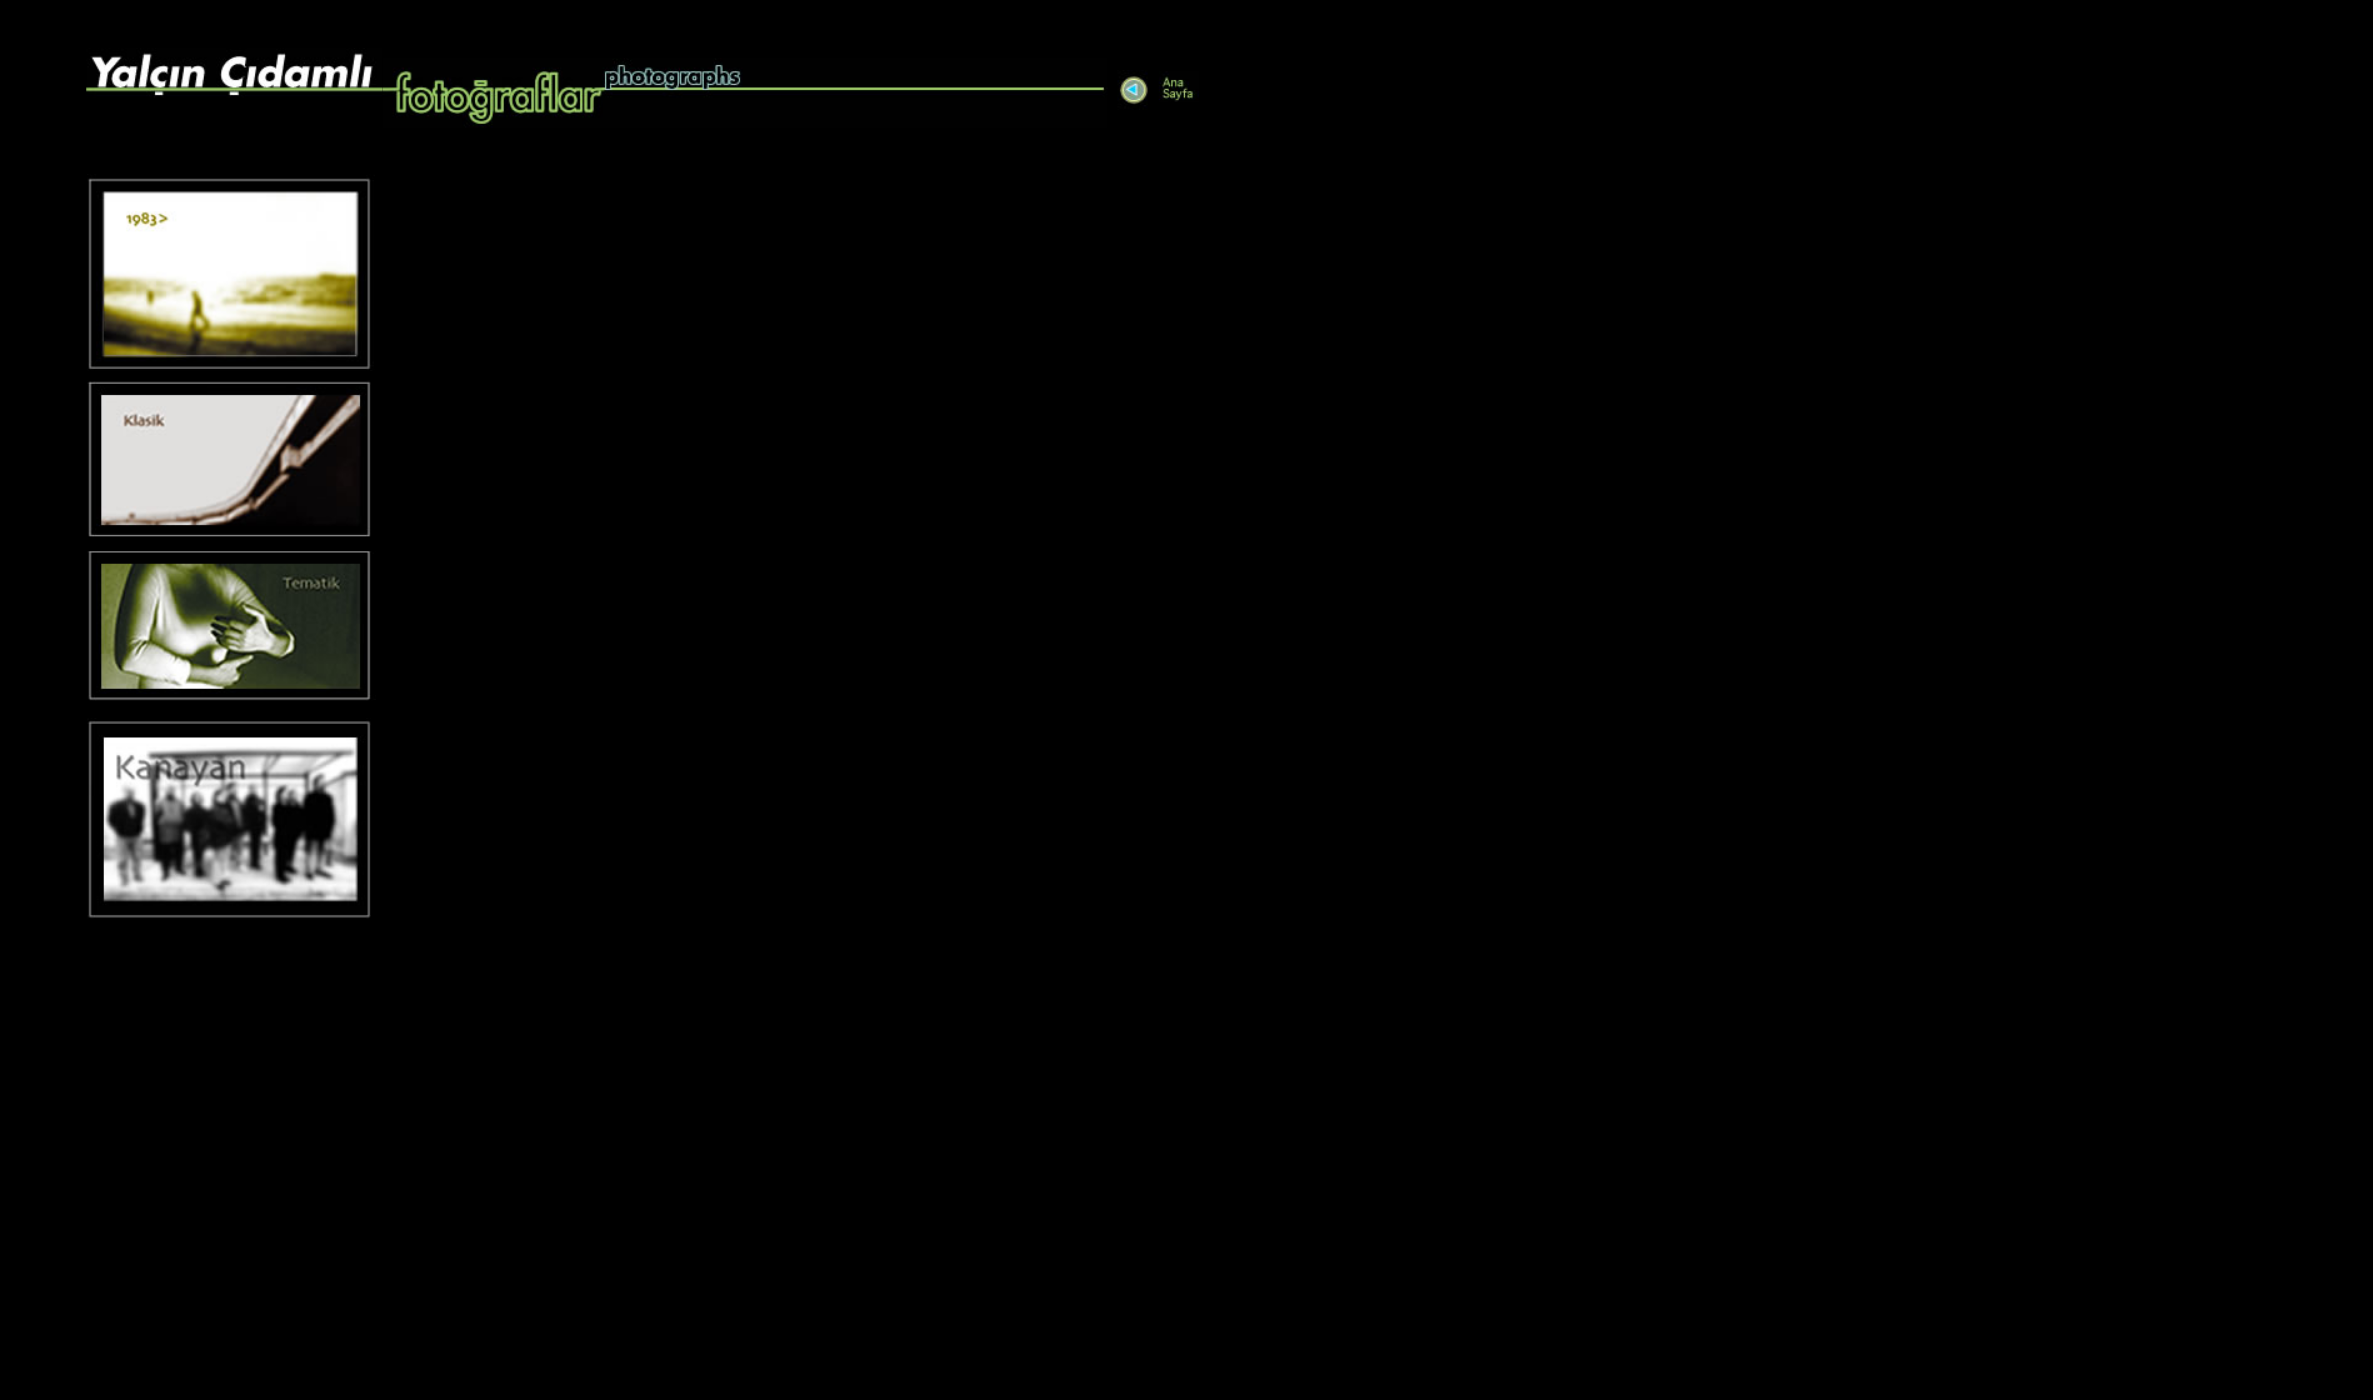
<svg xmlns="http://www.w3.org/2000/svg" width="2373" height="1400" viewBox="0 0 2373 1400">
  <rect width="100%" height="100%" fill="rgb(0,0,0)"/>
  <image x="86" y="48" width="297" height="50" href="pic1.png"/>
  <image x="382" y="58" width="726" height="70" href="pic2.png"/>
  <image x="1117" y="70" width="31" height="40" href="pic3.png"/>
  <image x="1158" y="71" width="41" height="31" href="pic4.png"/>
  <image x="87" y="174" width="288" height="197" href="pic5.png"/>
  <image x="87" y="380" width="284" height="157" href="pic6.png"/>
  <image x="87" y="551" width="289" height="150" href="pic7.png"/>
  <image x="87" y="718" width="284" height="201" href="pic8.png"/>
</svg>
